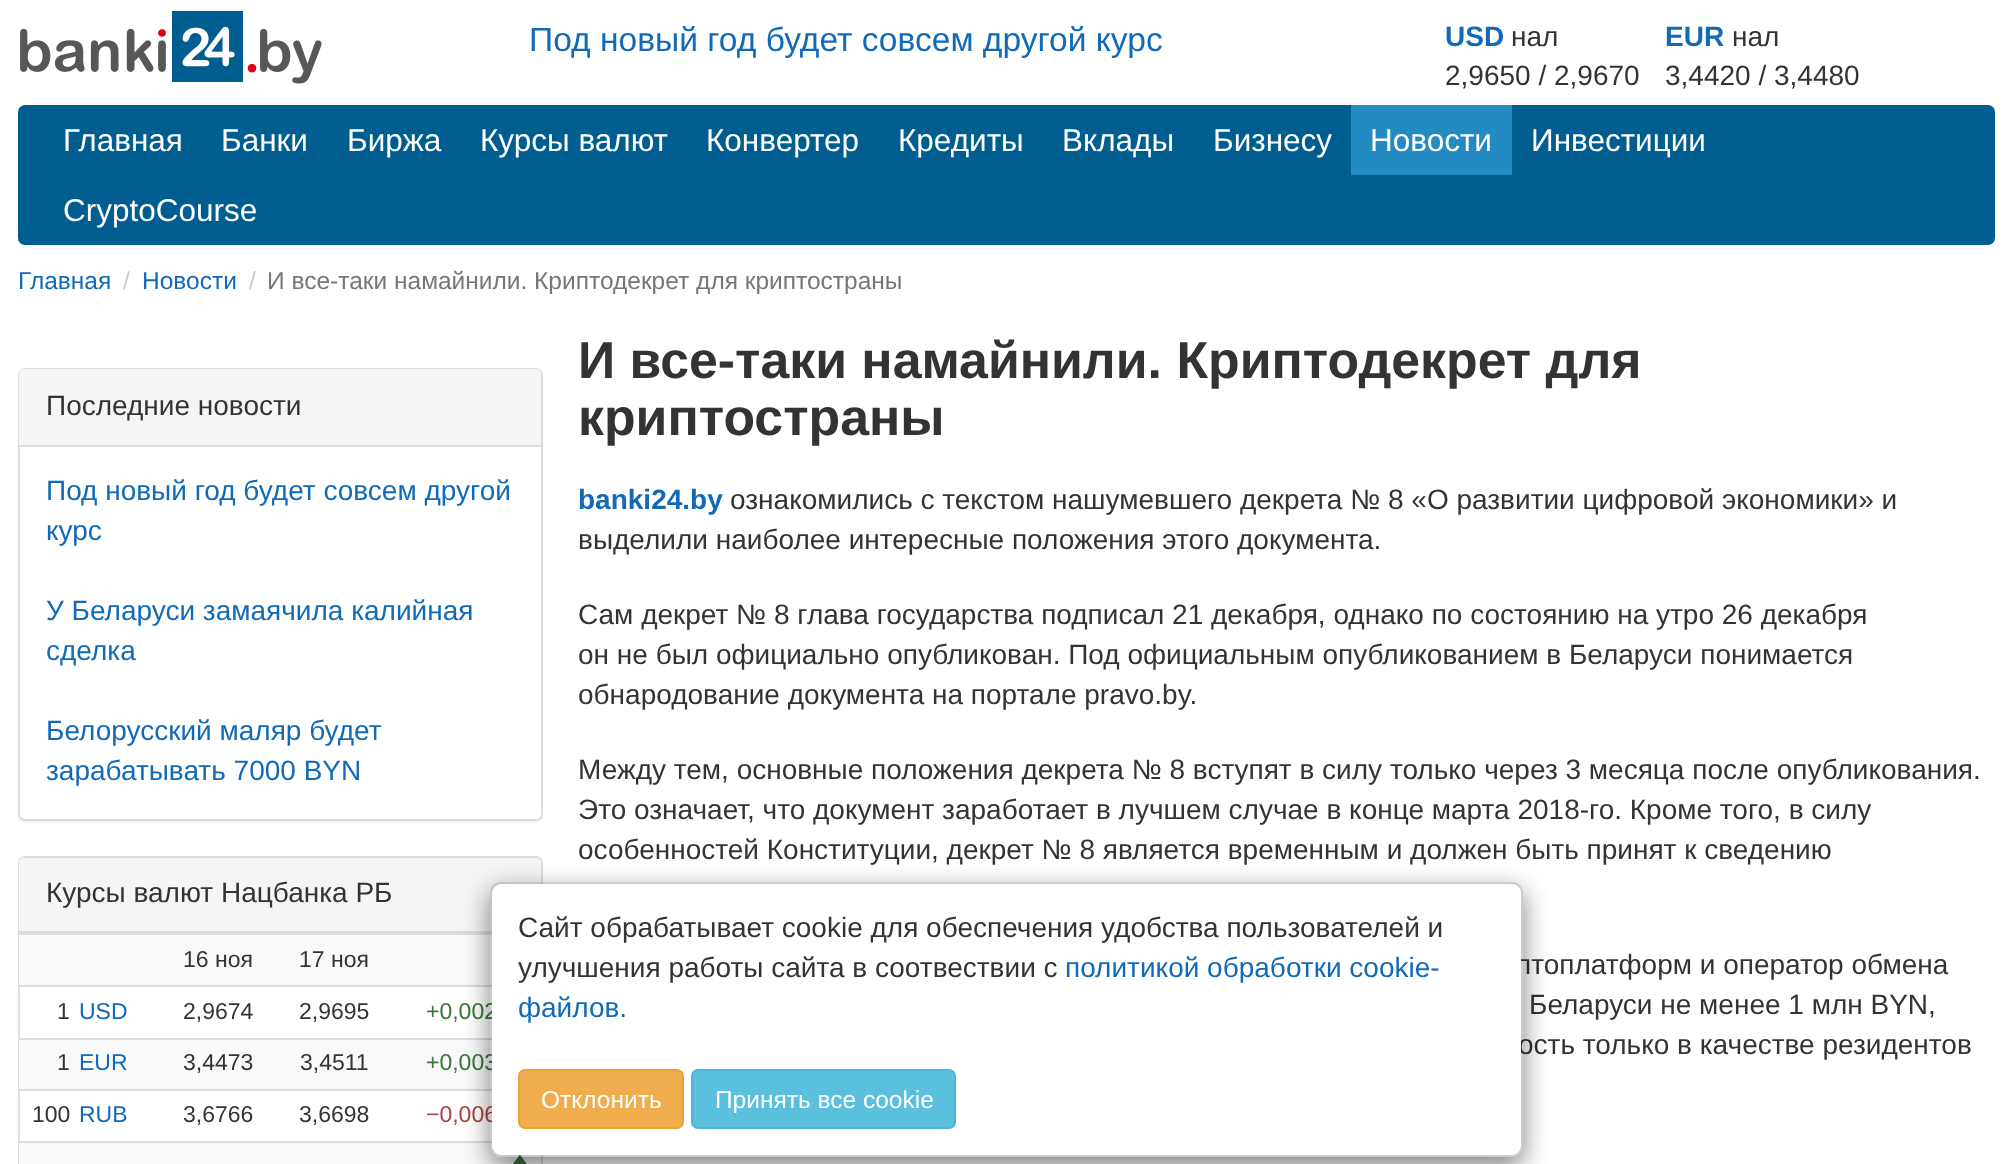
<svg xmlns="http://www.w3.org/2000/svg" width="2012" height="1164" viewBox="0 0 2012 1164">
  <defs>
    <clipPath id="clip1"><path d="M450 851H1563V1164H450ZM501 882H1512C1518 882 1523 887 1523 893V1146C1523 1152 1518 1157 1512 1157H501C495 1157 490 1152 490 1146V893C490 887 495 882 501 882Z" clip-rule="evenodd"/></clipPath>
  </defs>
  <rect width="100%" height="100%" fill="rgb(255,255,255)"/>
  <image x="20" y="11" width="302" height="73" href="pic1.png"/>
  <text x="529" y="51" font-family="Liberation Sans" font-size="33.6" fill="rgb(17,106,184)">Под новый год будет совсем другой курс</text>
  <text x="1445" y="46" font-family="Liberation Sans" font-size="28" font-weight="bold" fill="rgb(17,106,184)">USD</text>
  <text x="1511" y="46" font-family="Liberation Sans" font-size="28" fill="rgb(51,51,51)">нал</text>
  <text x="1665" y="46" font-family="Liberation Sans" font-size="28" font-weight="bold" fill="rgb(17,106,184)">EUR</text>
  <g font-family="Liberation Sans" font-size="28" fill="rgb(51,51,51)">
    <text x="1732" y="46">нал</text>
    <text x="1445" y="85">2,9650 / 2,9670</text>
    <text x="1665" y="85">3,4420 / 3,4480</text>
  </g>
  <rect x="18" y="105" width="1977" height="140" rx="7" fill="rgb(0,93,144)"/>
  <g font-family="Liberation Sans" font-size="31.5" fill="rgb(255,255,255)">
    <text x="63" y="151">Главная</text>
    <text x="221" y="151">Банки</text>
    <text x="347" y="151">Биржа</text>
    <text x="480" y="151">Курсы валют</text>
    <text x="706" y="151">Конвертер</text>
    <text x="898" y="151">Кредиты</text>
    <text x="1062" y="151">Вклады</text>
    <text x="1213" y="151">Бизнесу</text>
  </g>
  <rect x="1351" y="105" width="161" height="70" fill="rgb(36,138,194)"/>
  <g font-family="Liberation Sans" font-size="31.5" fill="rgb(255,255,255)">
    <text x="1370" y="151">Новости</text>
    <text x="1531" y="151">Инвестиции</text>
    <text x="63" y="221">CryptoCourse</text>
  </g>
  <text x="18" y="289" font-family="Liberation Sans" font-size="24.5" fill="rgb(17,106,184)">Главная</text>
  <text x="123" y="289" font-family="Liberation Sans" font-size="24.5" fill="rgb(204,204,204)">/</text>
  <text x="142" y="289" font-family="Liberation Sans" font-size="24.5" fill="rgb(17,106,184)">Новости</text>
  <text x="249" y="289" font-family="Liberation Sans" font-size="24.5" fill="rgb(204,204,204)">/</text>
  <text x="267" y="289" font-family="Liberation Sans" font-size="24.5" fill="rgb(119,119,119)">И все-таки намайнили. Криптодекрет для криптостраны</text>
  <rect x="18" y="369" width="525" height="454" rx="7" fill="rgba(0,0,0,0.05)" filter="blur(1px)"/>
  <rect x="19" y="369" width="523" height="451" rx="6" fill="rgb(255,255,255)" stroke="rgb(221,221,221)" stroke-width="2"/>
  <path d="M24 369H536C539 369 541 371 541 374V446H19V374C19 371 21 369 24 369Z" fill="rgb(245,245,245)"/>
  <rect x="19" y="445" width="522" height="2" fill="rgb(221,221,221)"/>
  <text x="46" y="415" font-family="Liberation Sans" font-size="28" fill="rgb(51,51,51)">Последние новости</text>
  <g font-family="Liberation Sans" font-size="28" fill="rgb(17,106,184)">
    <text>
      <tspan x="46" y="500">Под новый год будет совсем другой</tspan>
      <tspan x="46" y="540">курс</tspan>
    </text>
    <text>
      <tspan x="46" y="620">У Беларуси замаячила калийная</tspan>
      <tspan x="46" y="660">сделка</tspan>
    </text>
    <text>
      <tspan x="46" y="740">Белорусский маляр будет</tspan>
      <tspan x="46" y="780">зарабатывать 7000 BYN</tspan>
    </text>
  </g>
  <rect x="19" y="857" width="523" height="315" rx="6" fill="none" stroke="rgb(221,221,221)" stroke-width="2"/>
  <path d="M24 858H536C539 858 541 860 541 863V933H19V863C19 860 21 858 24 858Z" fill="rgb(245,245,245)"/>
  <rect x="19" y="931" width="473" height="2" fill="rgb(221,221,221)"/>
  <text x="46" y="902" font-family="Liberation Sans" font-size="28" fill="rgb(51,51,51)">Курсы валют Нацбанка РБ</text>
  <rect x="19" y="933" width="473" height="2" fill="rgb(221,221,221)"/>
  <rect x="19" y="935" width="473" height="50" fill="rgb(249,249,249)"/>
  <g font-family="Liberation Sans" font-size="23" fill="rgb(51,51,51)">
    <text x="183" y="967">16 ноя</text>
    <text x="299" y="967">17 ноя</text>
    <text x="57" y="1019">1</text>
  </g>
  <text x="79" y="1019" font-family="Liberation Sans" font-size="23" fill="rgb(17,106,184)">USD</text>
  <g font-family="Liberation Sans" font-size="23" fill="rgb(51,51,51)">
    <text x="183" y="1019">2,9674</text>
    <text x="299" y="1019">2,9695</text>
  </g>
  <rect x="19" y="985" width="473" height="2" fill="rgb(221,221,221)"/>
  <text x="426" y="1019" font-family="Liberation Sans" font-size="23" fill="rgb(60,118,61)">+0,002</text>
  <rect x="19" y="1040" width="473" height="49" fill="rgb(249,249,249)"/>
  <text x="57" y="1070" font-family="Liberation Sans" font-size="23" fill="rgb(51,51,51)">1</text>
  <text x="79" y="1070" font-family="Liberation Sans" font-size="23" fill="rgb(17,106,184)">EUR</text>
  <g font-family="Liberation Sans" font-size="23" fill="rgb(51,51,51)">
    <text x="183" y="1070">3,4473</text>
    <text x="300" y="1070">3,4511</text>
  </g>
  <rect x="19" y="1038" width="473" height="2" fill="rgb(221,221,221)"/>
  <text x="426" y="1070" font-family="Liberation Sans" font-size="23" fill="rgb(60,118,61)">+0,003</text>
  <text x="32" y="1122" font-family="Liberation Sans" font-size="23" fill="rgb(51,51,51)">100</text>
  <text x="79" y="1122" font-family="Liberation Sans" font-size="23" fill="rgb(17,106,184)">RUB</text>
  <g font-family="Liberation Sans" font-size="23" fill="rgb(51,51,51)">
    <text x="183" y="1122">3,6766</text>
    <text x="299" y="1122">3,6698</text>
  </g>
  <rect x="19" y="1089" width="473" height="2" fill="rgb(221,221,221)"/>
  <text x="426" y="1122" font-family="Liberation Sans" font-size="23" fill="rgb(169,68,66)">−0,006</text>
  <rect x="19" y="1141" width="473" height="2" fill="rgb(221,221,221)"/>
  <rect x="19" y="1143" width="522" height="21" fill="rgb(249,249,249)"/>
  <image x="513" y="1155" width="14" height="9" href="pic2.png"/>
  <g font-family="Liberation Sans" font-size="51.8" font-weight="bold" fill="rgb(51,51,51)">
    <text>
      <tspan x="578" y="378">И все-таки намайнили. Криптодекрет для</tspan>
      <tspan x="578" y="435">криптостраны</tspan>
    </text>
  </g>
  <text x="578" y="509" font-family="Liberation Sans" font-size="28" font-weight="bold" fill="rgb(17,106,184)">banki24.by</text>
  <g font-family="Liberation Sans" font-size="28" fill="rgb(51,51,51)">
    <text x="730" y="509">ознакомились с текстом нашумевшего декрета № 8 «О развитии цифровой экономики» и</text>
    <text x="578" y="549">выделили наиболее интересные положения этого документа.</text>
    <text>
      <tspan x="578" y="624">Сам декрет № 8 глава государства подписал 21 декабря, однако по состоянию на утро 26 декабря</tspan>
      <tspan x="578" y="664">он не был официально опубликован. Под официальным опубликованием в Беларуси понимается</tspan>
      <tspan x="578" y="704">обнародование документа на портале pravo.by.</tspan>
    </text>
    <text>
      <tspan x="578" y="779">Между тем, основные положения декрета № 8 вступят в силу только через 3 месяца после опубликования.</tspan>
      <tspan x="578" y="819">Это означает, что документ заработает в лучшем случае в конце марта 2018-го. Кроме того, в силу</tspan>
      <tspan x="578" y="859">особенностей Конституции, декрет № 8 является временным и должен быть принят к сведению</tspan>
    </text>
    <text x="1516" y="974">птоплатформ и оператор обмена</text>
    <text x="1529" y="1014">Беларуси не менее 1 млн BYN,</text>
    <text x="1518" y="1054">ость только в качестве резидентов</text>
  </g>
  <g clip-path="url(#clip1)">
    <rect x="490" y="891" width="1033" height="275" rx="11" fill="rgba(0,0,0,0.5)" filter="blur(13px)"/>
  </g>
  <rect x="492" y="884" width="1029" height="271" rx="9" fill="rgb(255,255,255)"/>
  <rect x="491" y="883" width="1031" height="273" rx="10" fill="none" stroke="rgba(0,0,0,0.2)" stroke-width="2"/>
  <g font-family="Liberation Sans" font-size="28" fill="rgb(51,51,51)">
    <text>
      <tspan x="518" y="937">Сайт обрабатывает cookie для обеспечения удобства пользователей и</tspan>
      <tspan x="518" y="977">улучшения работы сайта в соотвествии с</tspan>
    </text>
  </g>
  <g font-family="Liberation Sans" font-size="28" fill="rgb(17,106,184)">
    <text x="1065" y="977">политикой обработки cookie-</text>
    <text x="518" y="1017">файлов.</text>
  </g>
  <rect x="519" y="1070" width="164" height="58" rx="6" fill="rgb(240,173,78)" stroke="rgb(238,162,54)" stroke-width="2"/>
  <text x="541" y="1108" font-family="Liberation Sans" font-size="24.5" fill="rgb(255,255,255)">Отклонить</text>
  <rect x="692" y="1070" width="263" height="58" rx="6" fill="rgb(91,192,222)" stroke="rgb(70,184,218)" stroke-width="2"/>
  <text x="715" y="1108" font-family="Liberation Sans" font-size="24.5" fill="rgb(255,255,255)">Принять все cookie</text>
</svg>
